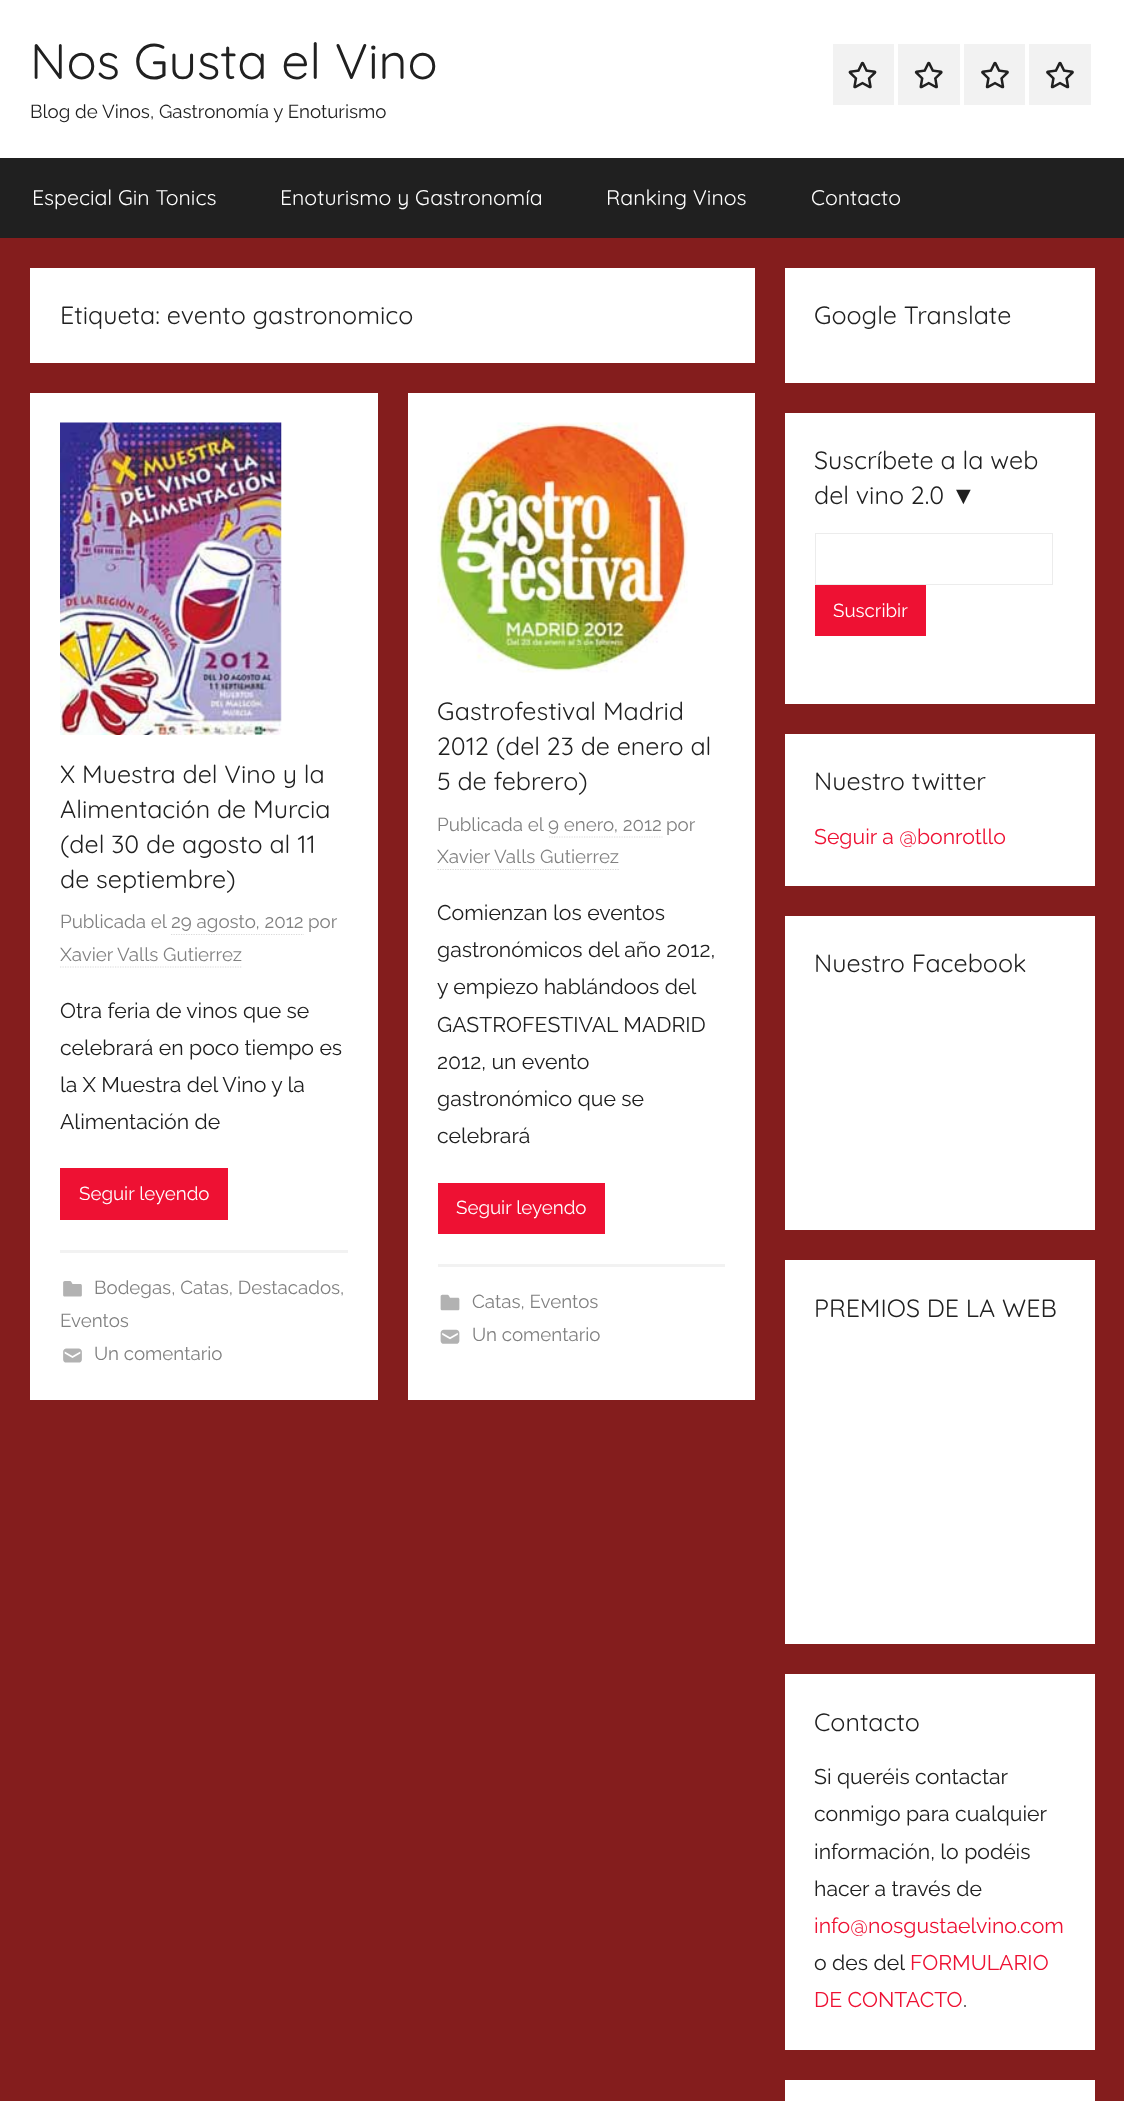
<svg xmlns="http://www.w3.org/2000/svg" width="1124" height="2101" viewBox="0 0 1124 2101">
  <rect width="100%" height="100%" fill="rgb(132,29,29)"/>
  <rect x="0" y="0" width="1124" height="158" fill="rgb(255,255,255)"/>
  <text x="30" y="79" font-family="Quicksand" font-size="50" fill="rgb(32,32,32)">Nos Gusta el Vino</text>
  <text x="30" y="118" font-family="Raleway" font-size="18.75" fill="rgb(32,32,32)">Blog de Vinos, Gastronomía y Enoturismo</text>
  <rect x="833" y="44" width="61" height="61" fill="rgb(242,242,242)"/>
  <image x="848" y="61" width="29" height="28" href="pic1.png"/>
  <rect x="898" y="44" width="62" height="61" fill="rgb(242,242,242)"/>
  <image x="914" y="61" width="29" height="28" href="pic2.png"/>
  <rect x="964" y="44" width="61" height="61" fill="rgb(242,242,242)"/>
  <image x="981" y="61" width="28" height="28" href="pic3.png"/>
  <rect x="1029" y="44" width="62" height="61" fill="rgb(242,242,242)"/>
  <image x="1046" y="61" width="28" height="28" href="pic3.png"/>
  <rect x="0" y="158" width="1124" height="80" fill="rgb(32,32,32)"/>
  <g font-family="Quicksand" font-size="21.25" fill="rgb(255,255,255)">
    <text x="32" y="205">Especial Gin Tonics</text>
    <text x="280" y="205">Enoturismo y Gastronomía</text>
    <text x="606" y="205">Ranking Vinos</text>
    <text x="811" y="205">Contacto</text>
  </g>
  <rect x="30" y="268" width="725" height="95" fill="rgb(255,255,255)"/>
  <text x="60" y="324" font-family="Quicksand" font-size="25" fill="rgb(32,32,32)">Etiqueta: evento gastronomico</text>
  <rect x="30" y="393" width="348" height="1007" fill="rgb(255,255,255)"/>
  <image x="60" y="422" width="222" height="313" href="pic4.png"/>
  <g font-family="Quicksand" font-size="25" fill="rgb(32,32,32)">
    <text>
      <tspan x="60" y="783">X Muestra del Vino y la</tspan>
      <tspan x="60" y="818">Alimentación de Murcia</tspan>
      <tspan x="60" y="853">(del 30 de agosto al 11</tspan>
      <tspan x="60" y="888">de septiembre)</tspan>
    </text>
  </g>
  <text x="60" y="928" font-family="Raleway" font-size="18.75" fill="rgb(128,128,128)">Publicada el 29 agosto, 2012</text>
  <path d="M171 934.5H304" fill="none" stroke="rgb(217,217,217)" stroke-width="1.2" stroke-dasharray="1.25 1.25"/>
  <g font-family="Raleway" font-size="18.75" fill="rgb(128,128,128)">
    <text x="308" y="928">por</text>
    <text x="60" y="961">Xavier Valls Gutierrez</text>
  </g>
  <path d="M60 967H242.5" fill="none" stroke="rgb(217,217,217)" stroke-width="1.2" stroke-dasharray="1.25 1.25"/>
  <g font-family="Raleway" font-size="21.25" fill="rgb(32,32,32)">
    <text>
      <tspan x="60" y="1018">Otra feria de vinos que se</tspan>
      <tspan x="60" y="1055">celebrará en poco tiempo es</tspan>
      <tspan x="60" y="1092">la X Muestra del Vino y la</tspan>
      <tspan x="60" y="1129">Alimentación de</tspan>
    </text>
  </g>
  <rect x="60" y="1168" width="168" height="52" fill="rgb(238,17,51)"/>
  <text x="79" y="1200" font-family="Raleway" font-size="18.75" fill="rgb(255,255,255)">Seguir leyendo</text>
  <rect x="60" y="1250" width="288" height="3" fill="rgb(242,242,242)"/>
  <image x="63" y="1281" width="19" height="16" href="pic5.png"/>
  <g font-family="Raleway" font-size="18.75" fill="rgb(128,128,128)">
    <text x="94" y="1294">Bodegas, Catas, Destacados,</text>
    <text x="60" y="1327">Eventos</text>
  </g>
  <image x="63" y="1348" width="19" height="15" href="pic6.png"/>
  <text x="94" y="1360" font-family="Raleway" font-size="18.75" fill="rgb(128,128,128)">Un comentario</text>
  <rect x="408" y="393" width="347" height="1007" fill="rgb(255,255,255)"/>
  <image x="437" y="422" width="251" height="251" href="pic7.png"/>
  <g font-family="Quicksand" font-size="25" fill="rgb(32,32,32)">
    <text>
      <tspan x="437" y="720">Gastrofestival Madrid</tspan>
      <tspan x="437" y="755">2012 (del 23 de enero al</tspan>
      <tspan x="437" y="790">5 de febrero)</tspan>
    </text>
  </g>
  <text x="437" y="831" font-family="Raleway" font-size="18.75" fill="rgb(128,128,128)">Publicada el 9 enero, 2012</text>
  <path d="M549 837H662.5" fill="none" stroke="rgb(217,217,217)" stroke-width="1.2" stroke-dasharray="1.25 1.25"/>
  <g font-family="Raleway" font-size="18.75" fill="rgb(128,128,128)">
    <text x="666" y="831">por</text>
    <text x="437" y="863">Xavier Valls Gutierrez</text>
  </g>
  <path d="M437.5 869.5H619" fill="none" stroke="rgb(217,217,217)" stroke-width="1.2" stroke-dasharray="1.25 1.25"/>
  <g font-family="Raleway" font-size="21.25" fill="rgb(32,32,32)">
    <text>
      <tspan x="437" y="920">Comienzan los eventos</tspan>
      <tspan x="437" y="957">gastronómicos del año 2012,</tspan>
      <tspan x="437" y="994">y empiezo hablándoos del</tspan>
      <tspan x="437" y="1032">GASTROFESTIVAL MADRID</tspan>
      <tspan x="437" y="1069">2012, un evento</tspan>
      <tspan x="437" y="1106">gastronómico que se</tspan>
      <tspan x="437" y="1143">celebrará</tspan>
    </text>
  </g>
  <rect x="438" y="1183" width="167" height="51" fill="rgb(238,17,51)"/>
  <text x="456" y="1214" font-family="Raleway" font-size="18.75" fill="rgb(255,255,255)">Seguir leyendo</text>
  <rect x="438" y="1264" width="287" height="3" fill="rgb(242,242,242)"/>
  <image x="440" y="1294" width="20" height="17" href="pic8.png"/>
  <text x="472" y="1308" font-family="Raleway" font-size="18.75" fill="rgb(128,128,128)">Catas, Eventos</text>
  <image x="440" y="1329" width="20" height="15" href="pic9.png"/>
  <text x="472" y="1341" font-family="Raleway" font-size="18.75" fill="rgb(128,128,128)">Un comentario</text>
  <rect x="785" y="268" width="310" height="115" fill="rgb(255,255,255)"/>
  <text x="814" y="324" font-family="Quicksand" font-size="25" fill="rgb(32,32,32)">Google Translate</text>
  <rect x="785" y="413" width="310" height="291" fill="rgb(255,255,255)"/>
  <g font-family="Quicksand" font-size="25" fill="rgb(32,32,32)">
    <text>
      <tspan x="814" y="469">Suscríbete a la web</tspan>
      <tspan x="814" y="504">del vino 2.0</tspan>
    </text>
  </g>
  <text x="951" y="504" font-family="Liberation Sans" font-size="25" fill="rgb(32,32,32)">▼</text>
  <rect x="815.5" y="533.5" width="237" height="51" fill="none" stroke="rgb(236,236,236)"/>
  <rect x="815" y="585" width="111" height="51" fill="rgb(238,17,51)"/>
  <text x="833" y="617" font-family="Raleway" font-size="18.75" fill="rgb(255,255,255)">Suscribir</text>
  <rect x="785" y="734" width="310" height="152" fill="rgb(255,255,255)"/>
  <text x="814" y="790" font-family="Quicksand" font-size="25" fill="rgb(32,32,32)">Nuestro twitter</text>
  <text x="814" y="844" font-family="Raleway" font-size="21.25" fill="rgb(238,17,51)">Seguir a @bonrotllo</text>
  <rect x="785" y="916" width="310" height="314" fill="rgb(255,255,255)"/>
  <text x="814" y="972" font-family="Quicksand" font-size="25" fill="rgb(32,32,32)">Nuestro Facebook</text>
  <rect x="785" y="1260" width="310" height="384" fill="rgb(255,255,255)"/>
  <text x="814" y="1317" font-family="Quicksand" font-size="25" fill="rgb(32,32,32)">PREMIOS DE LA WEB</text>
  <rect x="785" y="1674" width="310" height="376" fill="rgb(255,255,255)"/>
  <text x="814" y="1731" font-family="Quicksand" font-size="25" fill="rgb(32,32,32)">Contacto</text>
  <g font-family="Raleway" font-size="21.25" fill="rgb(32,32,32)">
    <text>
      <tspan x="814" y="1784">Si queréis contactar</tspan>
      <tspan x="814" y="1821">conmigo para cualquier</tspan>
      <tspan x="814" y="1859">información, lo podéis</tspan>
      <tspan x="814" y="1896">hacer a través de</tspan>
    </text>
  </g>
  <text x="814" y="1933" font-family="Raleway" font-size="21.25" fill="rgb(238,17,51)">info@nosgustaelvino.com</text>
  <text x="814" y="1970" font-family="Raleway" font-size="21.25" fill="rgb(32,32,32)">o des del</text>
  <g font-family="Raleway" font-size="21.25" fill="rgb(238,17,51)">
    <text x="910" y="1970">FORMULARIO</text>
    <text x="814" y="2007">DE CONTACTO</text>
  </g>
  <text x="963" y="2007" font-family="Raleway" font-size="21.25" fill="rgb(32,32,32)">.</text>
  <rect x="785" y="2080" width="310" height="21" fill="rgb(255,255,255)"/>
</svg>
